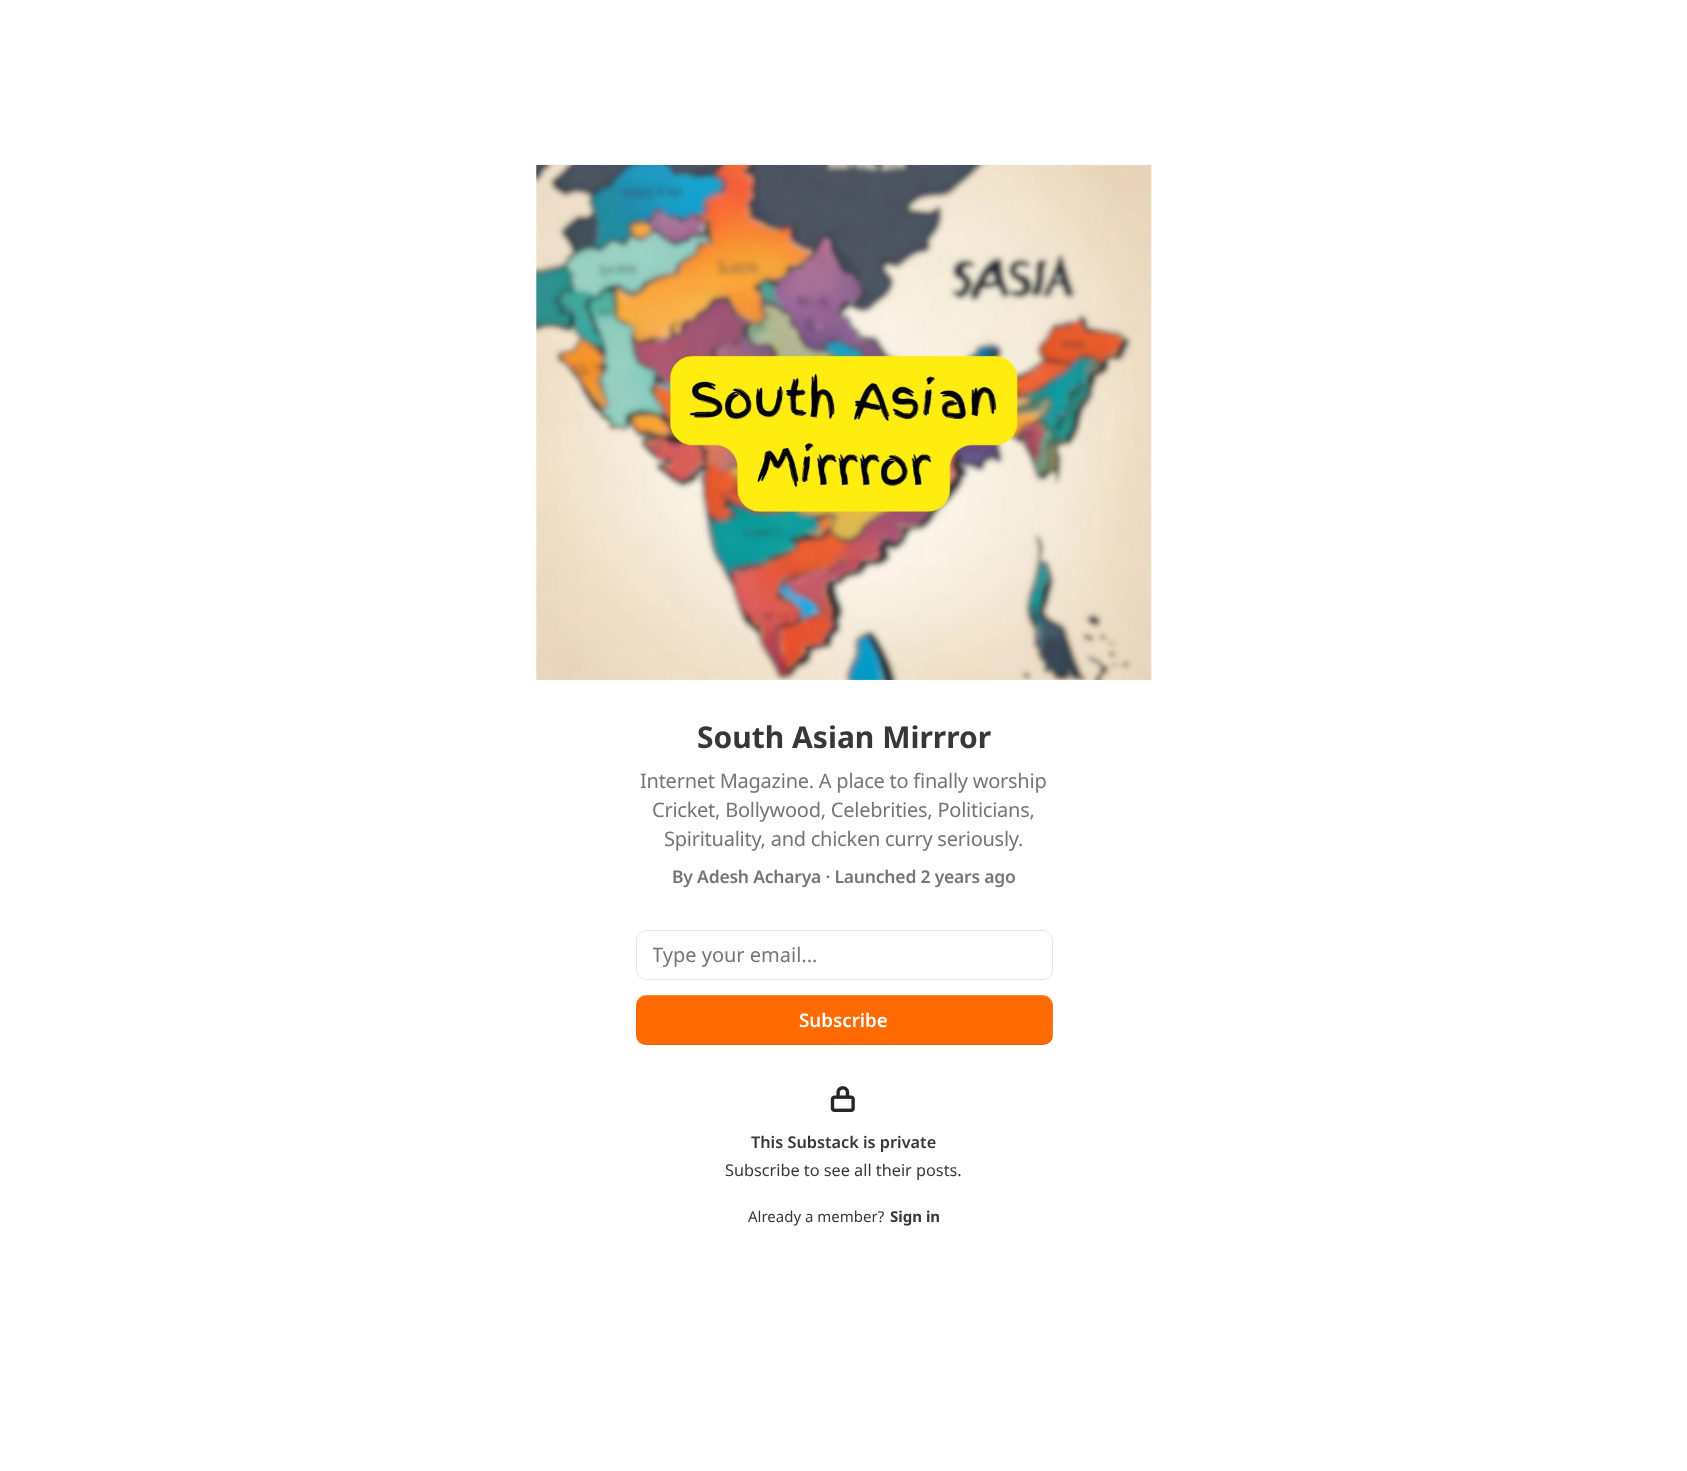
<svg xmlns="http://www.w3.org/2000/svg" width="1687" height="1471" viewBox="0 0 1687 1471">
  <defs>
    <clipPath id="clip1"><rect x="653" y="941" width="383" height="28"/></clipPath>
  </defs>
  <rect width="100%" height="100%" fill="rgb(255,255,255)"/>
  <image x="535" y="164" width="617" height="516" href="pic1.png"/>
  <text x="697" y="748" font-family="Noto Sans" font-size="30" font-weight="bold" fill="rgb(54,55,55)">South Asian Mirrror</text>
  <g font-family="Noto Sans" font-size="20" letter-spacing="-0.25" fill="rgb(117,117,117)">
    <text x="640" y="788">Internet Magazine. A place to finally worship</text>
    <text x="652" y="817">Cricket, Bollywood, Celebrities, Politicians,</text>
    <text x="664" y="846">Spirituality, and chicken curry seriously.</text>
  </g>
  <text x="672" y="883" font-family="Noto Sans" font-size="17.5" font-weight="600" letter-spacing="-0.2" fill="rgb(117,117,117)">By Adesh Acharya · Launched 2 years ago</text>
  <rect x="636.5" y="930.5" width="416" height="49" rx="9.5" fill="none" stroke="rgb(230,230,230)"/>
  <g clip-path="url(#clip1)">
    <text x="652" y="962" font-family="Noto Sans" font-size="20" fill="rgb(117,117,117)">Type your email...</text>
  </g>
  <rect x="636" y="995" width="417" height="50" rx="10" fill="rgb(255,107,0)"/>
  <path d="M636 1034V1035C636 1041 640 1045 646 1045H1043C1049 1045 1053 1041 1053 1035V1005C1053 1003 1052 1000 1051 999C1052 1000 1052 1002 1052 1004V1034C1052 1039 1048 1044 1042 1044H646C641 1044 636 1039 636 1034Z" fill="rgba(0,0,0,0.1)"/>
  <path d="M646 996H1042C1048 996 1052 1001 1052 1006V1036C1052 1038 1052 1040 1051 1041C1052 1040 1053 1037 1053 1035V1005C1053 999 1049 995 1043 995H646C640 995 636 999 636 1005V1006C636 1001 641 996 646 996Z" fill="rgba(255,255,255,0.2)"/>
  <text x="799" y="1027" font-family="Noto Sans" font-size="18.75" font-weight="600" fill="rgb(255,255,255)">Subscribe</text>
  <image x="830" y="1086" width="25" height="26" href="pic2.png"/>
  <text x="751" y="1148" font-family="Noto Sans" font-size="16.25" font-weight="600" fill="rgb(54,55,55)">This Substack is private</text>
  <text x="725" y="1176" font-family="Noto Sans" font-size="16.25" fill="rgb(54,55,55)">Subscribe to see all their posts.</text>
  <text x="748" y="1222" font-family="Noto Sans" font-size="15" fill="rgb(54,55,55)">Already a member?</text>
  <text x="890" y="1222" font-family="Noto Sans" font-size="15" font-weight="bold" fill="rgb(54,55,55)">Sign in</text>
</svg>
